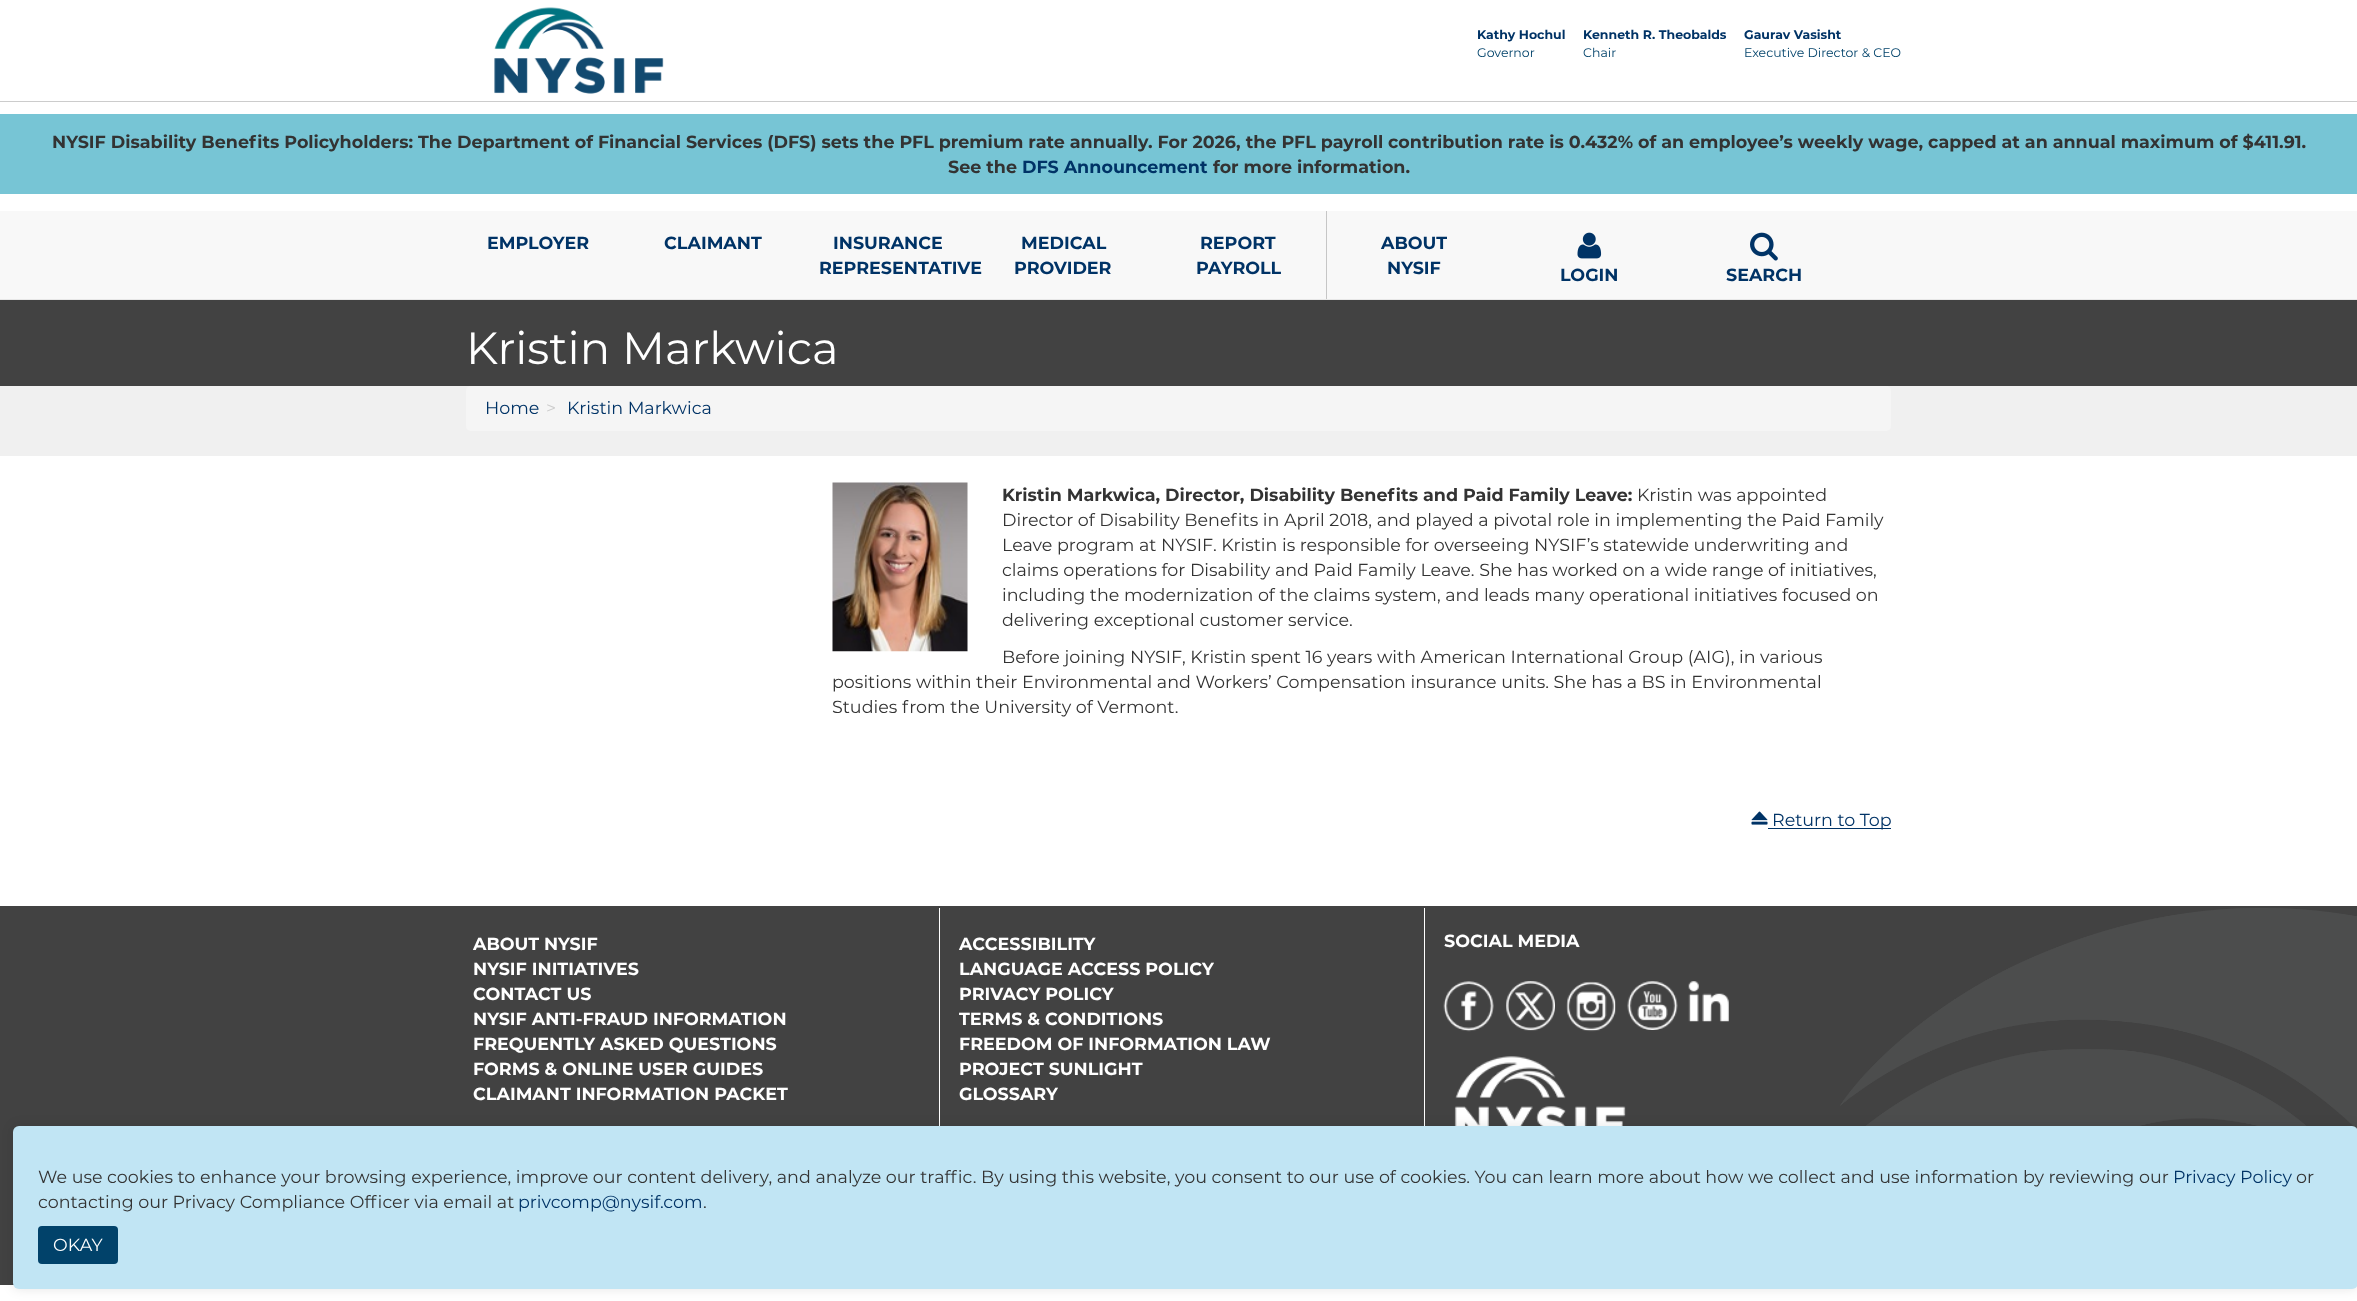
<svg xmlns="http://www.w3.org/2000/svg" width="2357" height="1301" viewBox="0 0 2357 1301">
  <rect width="100%" height="100%" fill="rgb(255,255,255)"/>
  <rect x="0" y="101" width="2357" height="1" fill="rgb(204,204,204)"/>
  <image x="494" y="7" width="170" height="87" href="pic1.png"/>
  <text x="1477" y="39" font-family="Montserrat" font-size="12.5" font-weight="bold" fill="rgb(0,51,102)">Kathy Hochul</text>
  <text x="1477" y="57" font-family="Montserrat" font-size="12.5" fill="rgb(1,66,106)">Governor</text>
  <text x="1583" y="39" font-family="Montserrat" font-size="12.5" font-weight="bold" fill="rgb(0,51,102)">Kenneth R. Theobalds</text>
  <text x="1583" y="57" font-family="Montserrat" font-size="12.5" fill="rgb(1,66,106)">Chair</text>
  <text x="1744" y="39" font-family="Montserrat" font-size="12.5" font-weight="bold" fill="rgb(0,51,102)">Gaurav Vasisht</text>
  <text x="1744" y="57" font-family="Montserrat" font-size="12.5" fill="rgb(1,66,106)">Executive Director &amp; CEO</text>
  <rect x="0" y="114" width="2357" height="80" fill="rgb(119,197,213)"/>
  <g font-family="Montserrat" font-size="17.5" font-weight="bold" fill="rgb(51,51,51)">
    <text x="52" y="148">NYSIF Disability Benefits Policyholders: The Department of Financial Services (DFS) sets the PFL premium rate annually. For 2026, the PFL payroll contribution rate is 0.432% of an employee’s weekly wage, capped at an annual maximum of $411.91.</text>
    <text x="948" y="173">See the</text>
  </g>
  <text x="1022" y="173" font-family="Montserrat" font-size="17.5" font-weight="bold" fill="rgb(0,51,102)">DFS Announcement</text>
  <text x="1213" y="173" font-family="Montserrat" font-size="17.5" font-weight="bold" fill="rgb(51,51,51)">for more information.</text>
  <rect x="0" y="211" width="2357" height="88" fill="rgb(248,248,248)"/>
  <rect x="0" y="299" width="2357" height="1" fill="rgb(231,231,231)"/>
  <g font-family="Montserrat" font-size="17.5" font-weight="bold" fill="rgb(0,51,102)">
    <text x="487" y="249">EMPLOYER</text>
    <text x="664" y="249">CLAIMANT</text>
    <text x="833" y="249">INSURANCE</text>
    <text x="819" y="274">REPRESENTATIVE</text>
    <text x="1021" y="249">MEDICAL</text>
    <text x="1014" y="274">PROVIDER</text>
    <text x="1200" y="249">REPORT</text>
    <text x="1196" y="274">PAYROLL</text>
  </g>
  <rect x="1326" y="211" width="1" height="88" fill="rgb(198,198,198)"/>
  <g font-family="Montserrat" font-size="17.5" font-weight="bold" fill="rgb(0,51,102)">
    <text x="1381" y="249">ABOUT</text>
    <text x="1387" y="274">NYSIF</text>
  </g>
  <image x="1577" y="232" width="25" height="27" href="pic2.png"/>
  <text x="1560" y="281" font-family="Montserrat" font-size="17.5" font-weight="bold" fill="rgb(0,51,102)">LOGIN</text>
  <image x="1750" y="232" width="28" height="29" href="pic3.png"/>
  <text x="1726" y="281" font-family="Montserrat" font-size="17.5" font-weight="bold" fill="rgb(0,51,102)">SEARCH</text>
  <rect x="0" y="300" width="2357" height="86" fill="rgb(66,66,66)"/>
  <text x="466" y="364" font-family="Montserrat" font-size="45" fill="rgb(255,255,255)">Kristin Markwica</text>
  <rect x="0" y="386" width="2357" height="70" fill="rgb(240,240,240)"/>
  <rect x="466" y="386" width="1425" height="45" rx="5" fill="rgb(245,245,245)"/>
  <text x="485" y="414" font-family="Montserrat" font-size="17.5" fill="rgb(0,51,102)">Home</text>
  <text x="546" y="414" font-family="Montserrat" font-size="17.5" fill="rgb(204,204,204)">&gt;</text>
  <text x="567" y="414" font-family="Montserrat" font-size="17.5" fill="rgb(0,51,102)">Kristin Markwica</text>
  <image x="832" y="482" width="136" height="170" href="pic4.png"/>
  <text x="1002" y="501" font-family="Montserrat" font-size="17.5" font-weight="bold" fill="rgb(51,51,51)">Kristin Markwica, Director, Disability Benefits and Paid Family Leave:</text>
  <g font-family="Montserrat" font-size="17.5" fill="rgb(51,51,51)">
    <text x="1637" y="501">Kristin was appointed</text>
    <text>
      <tspan x="1002" y="526">Director of Disability Benefits in April 2018, and played a pivotal role in implementing the Paid Family</tspan>
      <tspan x="1002" y="551">Leave program at NYSIF. Kristin is responsible for overseeing NYSIF’s statewide underwriting and</tspan>
      <tspan x="1002" y="576">claims operations for Disability and Paid Family Leave. She has worked on a wide range of initiatives,</tspan>
      <tspan x="1002" y="601">including the modernization of the claims system, and leads many operational initiatives focused on</tspan>
      <tspan x="1002" y="626">delivering exceptional customer service.</tspan>
    </text>
    <text x="1002" y="663">Before joining NYSIF, Kristin spent 16 years with American International Group (AIG), in various</text>
    <text>
      <tspan x="832" y="688">positions within their Environmental and Workers’ Compensation insurance units. She has a BS in Environmental</tspan>
      <tspan x="832" y="713">Studies from the University of Vermont.</tspan>
    </text>
  </g>
  <image x="1751" y="811" width="17" height="14" href="pic5.png"/>
  <rect x="1768" y="828" width="123" height="1" fill="rgb(0,51,102)"/>
  <text x="1772" y="826" font-family="Montserrat" font-size="17.5" fill="rgb(0,51,102)">Return to Top</text>
  <rect x="0" y="906" width="2357" height="379" fill="rgb(66,66,66)"/>
  <image x="1840" y="908" width="517" height="221" href="pic6.png"/>
  <g font-family="Montserrat" font-size="17.5" font-weight="bold" fill="rgb(255,255,255)">
    <text>
      <tspan x="473" y="950">ABOUT NYSIF</tspan>
      <tspan x="473" y="975">NYSIF INITIATIVES</tspan>
      <tspan x="473" y="1000">CONTACT US</tspan>
      <tspan x="473" y="1025">NYSIF ANTI-FRAUD INFORMATION</tspan>
      <tspan x="473" y="1050">FREQUENTLY ASKED QUESTIONS</tspan>
      <tspan x="473" y="1075">FORMS &amp; ONLINE USER GUIDES</tspan>
      <tspan x="473" y="1100">CLAIMANT INFORMATION PACKET</tspan>
    </text>
  </g>
  <rect x="939" y="908" width="1" height="218" fill="rgb(255,255,255)"/>
  <g font-family="Montserrat" font-size="17.5" font-weight="bold" fill="rgb(255,255,255)">
    <text>
      <tspan x="959" y="950">ACCESSIBILITY</tspan>
      <tspan x="959" y="975">LANGUAGE ACCESS POLICY</tspan>
      <tspan x="959" y="1000">PRIVACY POLICY</tspan>
      <tspan x="959" y="1025">TERMS &amp; CONDITIONS</tspan>
      <tspan x="959" y="1050">FREEDOM OF INFORMATION LAW</tspan>
      <tspan x="959" y="1075">PROJECT SUNLIGHT</tspan>
      <tspan x="959" y="1100">GLOSSARY</tspan>
    </text>
  </g>
  <rect x="1424" y="908" width="1" height="218" fill="rgb(255,255,255)"/>
  <text x="1444" y="947" font-family="Montserrat" font-size="17.5" font-weight="bold" fill="rgb(255,255,255)">SOCIAL MEDIA</text>
  <image x="1443" y="981" width="51" height="51" href="pic7.png"/>
  <image x="1506" y="981" width="49" height="50" href="pic8.png"/>
  <image x="1566" y="981" width="50" height="51" href="pic9.png"/>
  <image x="1627" y="981" width="51" height="49" href="pic10.png"/>
  <image x="1688" y="981" width="41" height="41" href="pic11.png"/>
  <image x="1454" y="1056" width="172" height="70" href="pic12.png"/>
  <rect x="13" y="1126" width="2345" height="163" rx="6" fill="rgba(0,0,0,0.1)" filter="blur(6px)"/>
  <rect x="13" y="1126" width="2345" height="163" rx="6" fill="rgb(193,229,244)"/>
  <text x="38" y="1183" font-family="Montserrat" font-size="17.5" fill="rgb(51,51,51)">We use cookies to enhance your browsing experience, improve our content delivery, and analyze our traffic. By using this website, you consent to our use of cookies. You can learn more about how we collect and use information by reviewing our</text>
  <text x="2173" y="1183" font-family="Montserrat" font-size="17.5" fill="rgb(0,51,102)">Privacy Policy</text>
  <g font-family="Montserrat" font-size="17.5" fill="rgb(51,51,51)">
    <text x="2296" y="1183">or</text>
    <text x="38" y="1208">contacting our Privacy Compliance Officer via email at</text>
  </g>
  <text x="518" y="1208" font-family="Montserrat" font-size="17.5" fill="rgb(0,51,102)">privcomp@nysif.com</text>
  <text x="703" y="1208" font-family="Montserrat" font-size="17.5" fill="rgb(51,51,51)">.</text>
  <rect x="38" y="1226" width="80" height="38" rx="4" fill="rgb(1,66,106)"/>
  <text x="53" y="1251" font-family="Montserrat" font-size="17.5" fill="rgb(255,255,255)">OKAY</text>
</svg>
